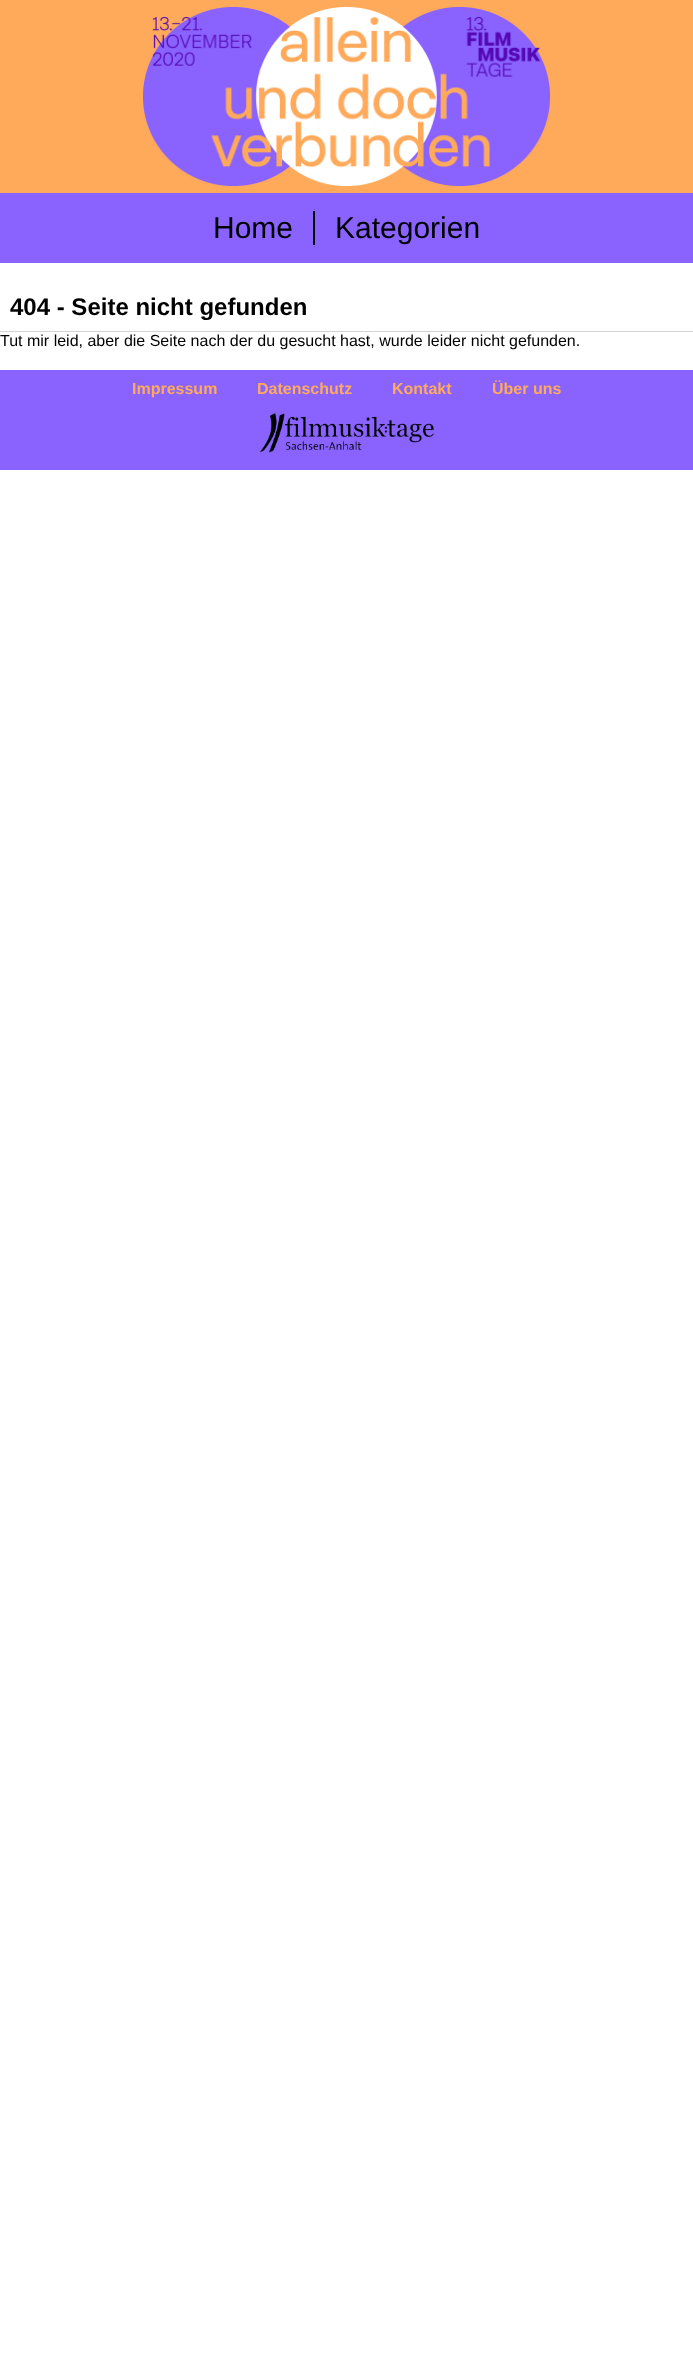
<svg xmlns="http://www.w3.org/2000/svg" width="693" height="2366" viewBox="0 0 693 2366">
  <rect width="100%" height="100%" fill="rgb(255,255,255)"/>
  <rect x="0" y="0" width="693" height="193" fill="rgb(255,170,90)"/>
  <image x="143" y="7" width="407" height="179" href="pic1.png"/>
  <rect x="0" y="193" width="693" height="70" fill="rgb(138,99,255)"/>
  <text x="213" y="238" font-family="Liberation Sans" font-size="30" fill="rgb(0,0,0)">Home</text>
  <rect x="313" y="211" width="2" height="34" fill="rgb(0,0,0)"/>
  <text x="335" y="238" font-family="Liberation Sans" font-size="30" fill="rgb(0,0,0)">Kategorien</text>
  <rect x="0" y="331" width="693" height="1" fill="rgb(211,211,211)"/>
  <text x="10" y="315" font-family="Liberation Sans" font-size="24" font-weight="bold" fill="rgb(0,0,0)">404 - Seite nicht gefunden</text>
  <text x="0" y="346" font-family="Liberation Sans" font-size="16" fill="rgb(0,0,0)">Tut mir leid, aber die Seite nach der du gesucht hast, wurde leider nicht gefunden.</text>
  <rect x="0" y="370" width="693" height="100" fill="rgb(138,99,255)"/>
  <g font-family="Liberation Sans" font-size="16" font-weight="bold" fill="rgb(255,170,90)">
    <text x="132" y="394">Impressum</text>
    <text x="257" y="394">Datenschutz</text>
    <text x="392" y="394">Kontakt</text>
    <text x="492" y="394">Über uns</text>
  </g>
  <image x="260" y="413" width="174" height="40" href="pic2.png"/>
</svg>
